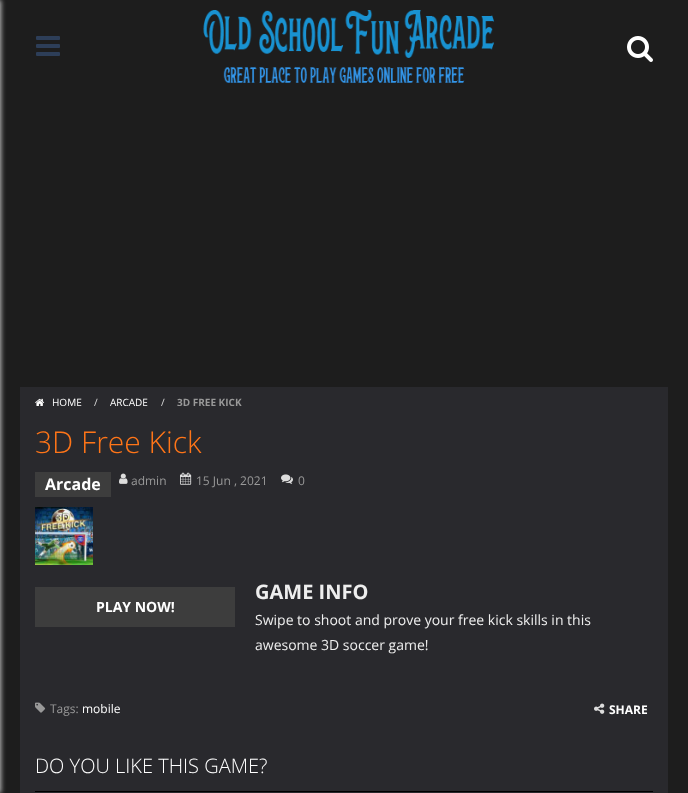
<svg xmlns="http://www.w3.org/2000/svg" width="688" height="793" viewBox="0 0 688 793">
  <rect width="100%" height="100%" fill="rgb(29,29,29)"/>
  <rect x="-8" y="0" width="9" height="793" fill="rgb(192,192,192)" filter="blur(2.5px)"/>
  <image x="36" y="36" width="24" height="20" href="pic1.png"/>
  <image x="203" y="10" width="292" height="73" href="pic2.png"/>
  <image x="627" y="36" width="26" height="26" href="pic3.png"/>
  <rect x="20" y="387" width="648" height="406" fill="rgb(41,41,45)"/>
  <image x="35" y="398" width="10" height="8" href="pic4.png"/>
  <text x="52" y="406" font-family="Open Sans" font-size="10" fill="rgb(255,255,255)">HOME</text>
  <text x="94" y="406" font-family="Open Sans" font-size="10" fill="rgb(221,221,221)">/</text>
  <text x="110" y="406" font-family="Open Sans" font-size="10" fill="rgb(255,255,255)">ARCADE</text>
  <text x="161" y="406" font-family="Open Sans" font-size="10" fill="rgb(221,221,221)">/</text>
  <text x="177" y="406" font-family="Open Sans" font-size="10" font-weight="bold" fill="rgb(153,153,153)">3D FREE KICK</text>
  <text x="35" y="453" font-family="Open Sans" font-size="30" font-weight="300" fill="rgb(255,117,24)">3D Free Kick</text>
  <rect x="35" y="472" width="76" height="25" fill="rgb(61,61,61)"/>
  <text x="45" y="490" font-family="Open Sans" font-size="16" font-weight="bold" fill="rgb(255,255,255)">Arcade</text>
  <image x="119" y="473" width="9" height="11" href="pic5.png"/>
  <text x="131" y="485" font-family="Open Sans" font-size="12" fill="rgb(153,153,153)">admin</text>
  <image x="180" y="472" width="12" height="13" href="pic6.png"/>
  <text x="196" y="485" font-family="Open Sans" font-size="12" fill="rgb(153,153,153)">15 Jun , 2021</text>
  <image x="281" y="474" width="12" height="10" href="pic7.png"/>
  <text x="298" y="485" font-family="Open Sans" font-size="12" fill="rgb(153,153,153)">0</text>
  <image x="35" y="507" width="58" height="58" href="pic8.png"/>
  <rect x="35" y="587" width="200" height="40" fill="rgb(61,61,61)"/>
  <text x="96" y="612" font-family="Open Sans" font-size="14" font-weight="bold" fill="rgb(255,255,255)">PLAY NOW!</text>
  <text x="255" y="599" font-family="Open Sans" font-size="20" font-weight="bold" fill="rgb(238,238,238)">GAME INFO</text>
  <g font-family="Open Sans" font-size="14" fill="rgb(238,238,238)">
    <text>
      <tspan x="255" y="625">Swipe to shoot and prove your free kick skills in this</tspan>
      <tspan x="255" y="650">awesome 3D soccer game!</tspan>
    </text>
  </g>
  <image x="35" y="702" width="11" height="11" href="pic9.png"/>
  <text x="50" y="713" font-family="Open Sans" font-size="12" fill="rgb(153,153,153)">Tags:</text>
  <text x="82" y="713" font-family="Open Sans" font-size="12" fill="rgb(255,255,255)">mobile</text>
  <image x="594" y="703" width="11" height="11" href="pic10.png"/>
  <text x="609" y="714" font-family="Open Sans" font-size="12" font-weight="bold" fill="rgb(255,255,255)">SHARE</text>
  <rect x="35" y="791" width="618" height="1" fill="rgb(0,0,0)"/>
  <text x="35" y="773" font-family="Open Sans" font-size="20" font-weight="300" fill="rgb(255,255,255)">DO YOU LIKE THIS GAME?</text>
</svg>
